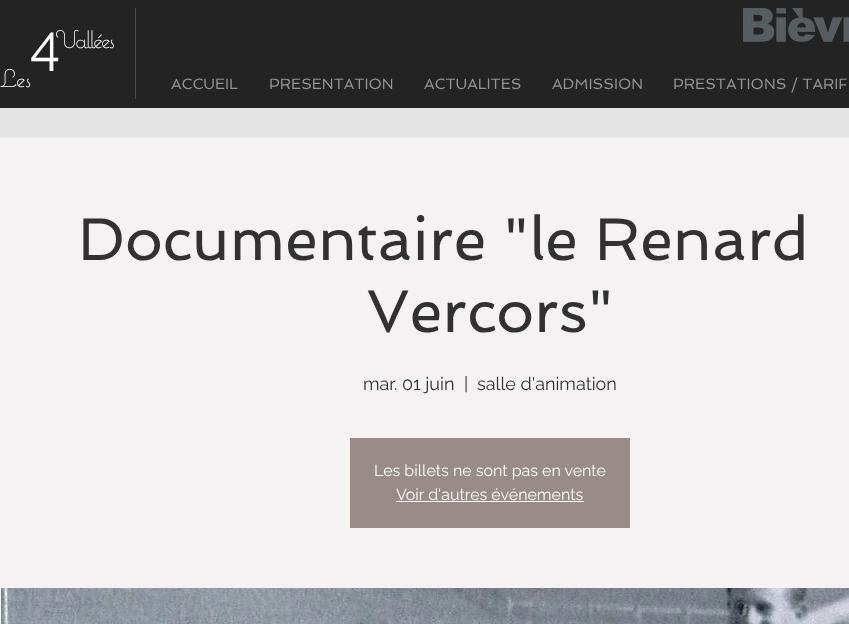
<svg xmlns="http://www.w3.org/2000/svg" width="849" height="624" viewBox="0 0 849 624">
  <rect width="100%" height="100%" fill="rgb(228,228,228)"/>
  <rect x="0" y="0" width="849" height="108" fill="rgb(36,35,35)"/>
  <text x="55" y="48" font-family="'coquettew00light'" font-size="25" font-weight="300" letter-spacing="-2.5" fill="rgb(253,253,253)">Vallées</text>
  <text x="30" y="64" font-family="Raleway" font-size="55" letter-spacing="5" fill="rgb(253,253,253)">4</text>
  <text x="0" y="87" font-family="'coquettew00light'" font-size="25" font-weight="300" letter-spacing="-1" fill="rgb(253,253,253)">Les</text>
  <rect x="135" y="8" width="1" height="91" fill="rgb(75,74,74)"/>
  <image x="743" y="8" width="106" height="34" href="pic1.png"/>
  <g font-family="Spinnaker" font-size="15" fill="rgb(147,147,147)">
    <text x="171" y="89">ACCUEIL</text>
    <text x="269" y="89">PRESENTATION</text>
    <text x="424" y="89">ACTUALITES</text>
    <text x="552" y="89">ADMISSION</text>
    <text x="673" y="89">PRESTATIONS / TARIF</text>
  </g>
  <rect x="0" y="138" width="849" height="486" fill="rgb(244,242,242)"/>
  <g font-family="Spinnaker" font-size="60" fill="rgb(49,49,49)">
    <text x="78" y="260">Documentaire "le Renard</text>
    <text x="367" y="332">Vercors"</text>
  </g>
  <g font-family="Raleway" font-size="18" fill="rgb(49,49,49)">
    <text x="363" y="390">mar. 01 juin</text>
    <text x="464" y="390">|</text>
    <text x="477" y="390">salle d'animation</text>
  </g>
  <rect x="350" y="438" width="280" height="90" fill="rgb(153,140,136)"/>
  <g font-family="Raleway" font-size="16" fill="rgb(253,253,253)">
    <text x="374" y="476">Les billets ne sont pas en vente</text>
    <text x="396" y="500">Voir d'autres événements</text>
  </g>
  <rect x="396" y="501" width="188" height="1" fill="rgb(253,253,253)"/>
  <image x="1" y="588" width="848" height="36" href="pic2.png"/>
</svg>
